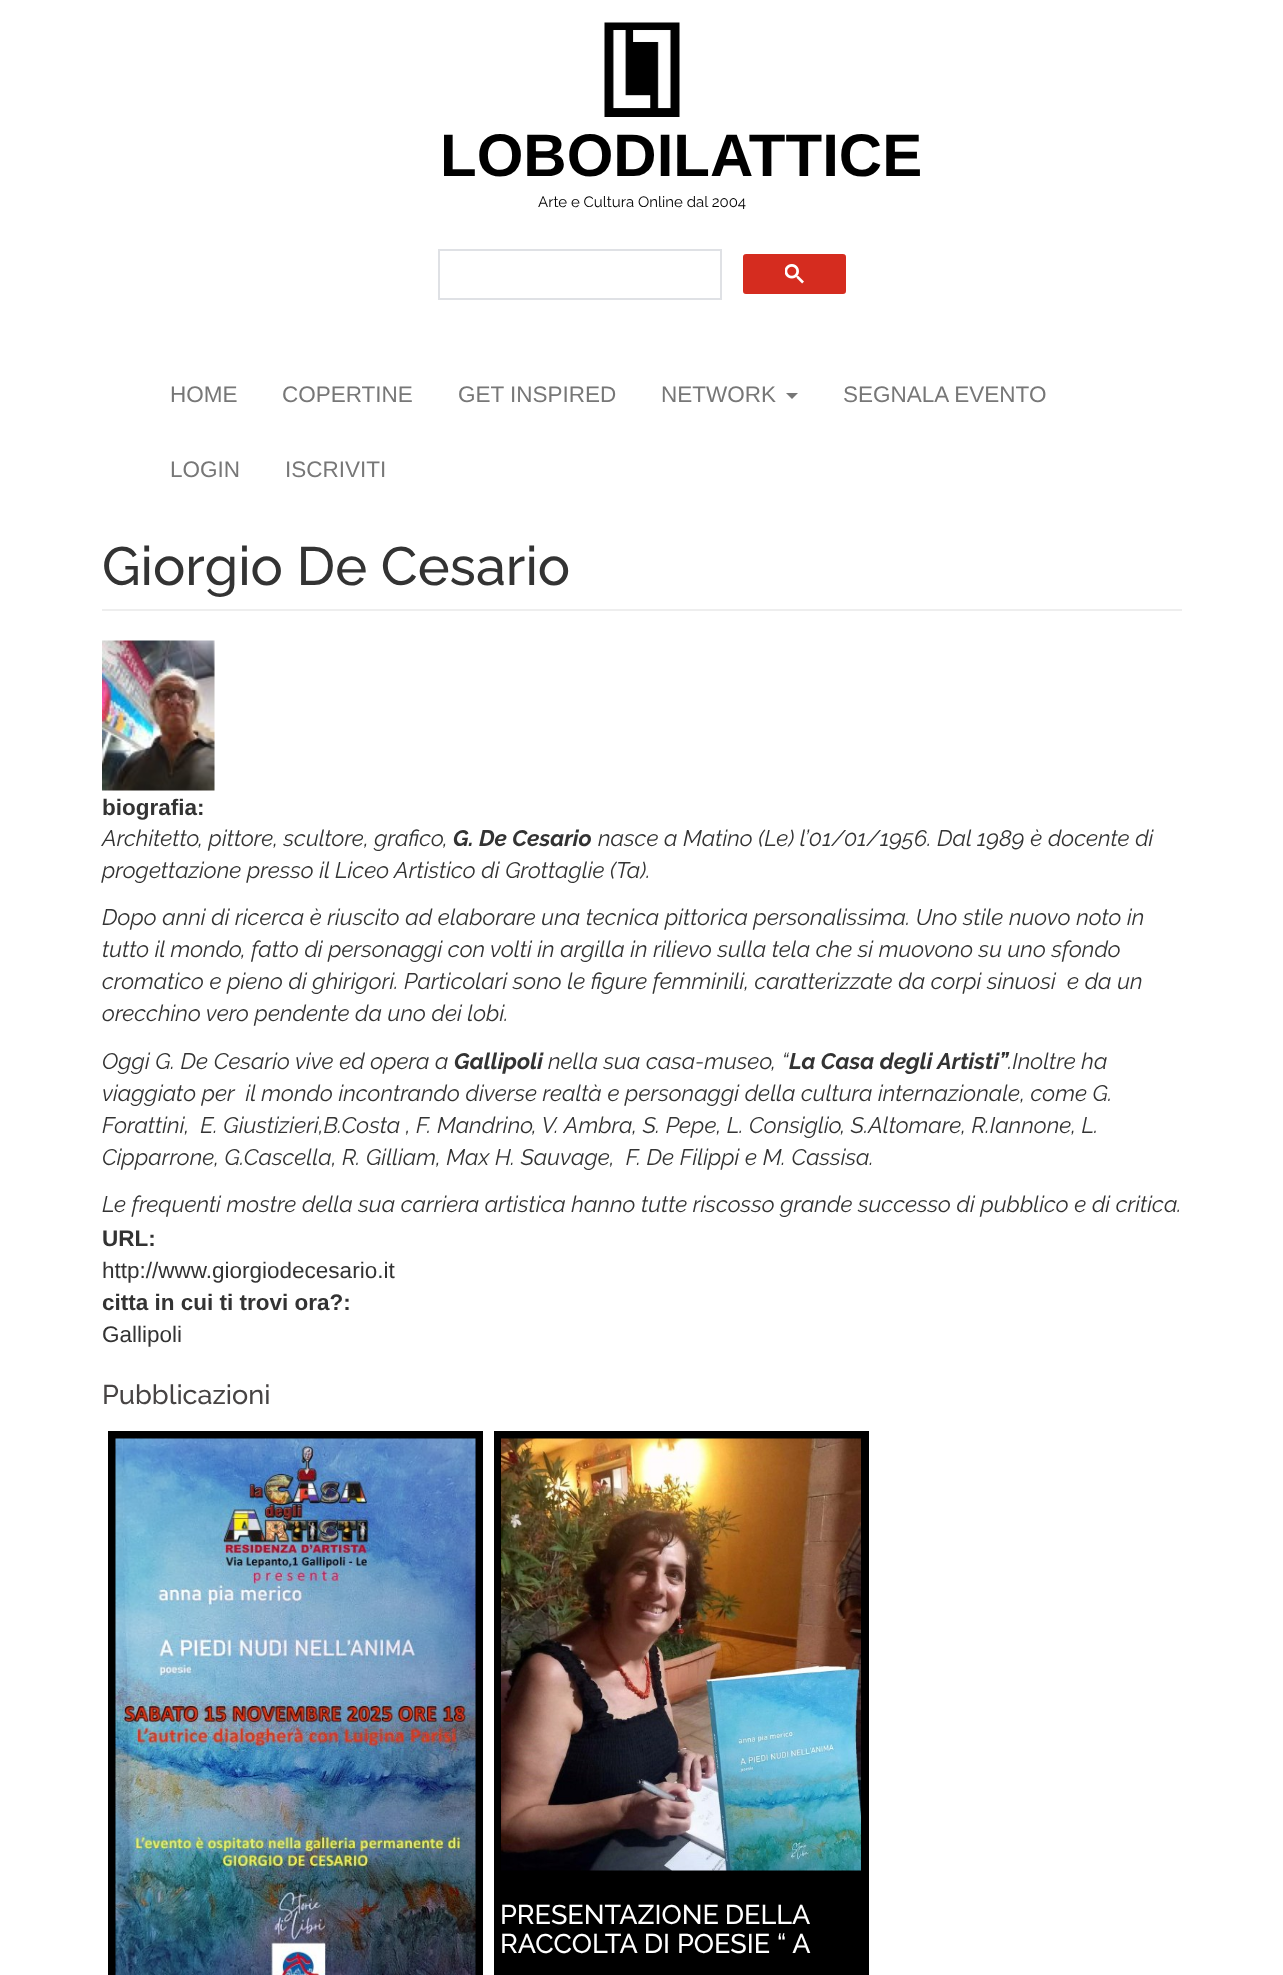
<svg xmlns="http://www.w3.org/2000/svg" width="1283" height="1975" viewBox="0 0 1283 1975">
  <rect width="100%" height="100%" fill="rgb(255,255,255)"/>
  <image x="604" y="22" width="76" height="95" href="pic1.png"/>
  <text x="440" y="176" font-family="Liberation Sans" font-size="60" font-weight="bold" fill="rgb(0,0,0)">LOBODILATTICE</text>
  <text x="538" y="207" font-family="Raleway" font-size="15" fill="rgb(0,0,0)">Arte e Cultura Online dal 2004</text>
  <rect x="439" y="250" width="282" height="49" fill="none" stroke="rgb(223,225,229)" stroke-width="2"/>
  <rect x="744" y="255" width="101" height="38" rx="2" fill="rgb(213,44,31)" stroke="rgb(213,44,31)" stroke-width="2"/>
  <image x="785" y="264" width="19" height="20" href="pic2.png"/>
  <g font-family="Liberation Sans" font-size="22.5" fill="rgb(119,119,119)">
    <text x="170" y="402">HOME</text>
    <text x="282" y="402">COPERTINE</text>
    <text x="458" y="402">GET INSPIRED</text>
    <text x="661" y="402">NETWORK</text>
  </g>
  <path d="M786 393H798L792 399Z" fill="rgb(119,119,119)"/>
  <g font-family="Liberation Sans" font-size="22.5" fill="rgb(119,119,119)">
    <text x="843" y="402">SEGNALA EVENTO</text>
    <text x="170" y="477">LOGIN</text>
    <text x="285" y="477">ISCRIVITI</text>
  </g>
  <rect x="102" y="609" width="1080" height="2" fill="rgb(238,238,238)"/>
  <text x="102" y="585" font-family="Raleway" font-size="54" font-weight="500" fill="rgb(51,51,51)">Giorgio De Cesario</text>
  <image x="102" y="640" width="113" height="151" href="pic3.png"/>
  <text x="102" y="815" font-family="Liberation Sans" font-size="22.5" font-weight="bold" fill="rgb(51,51,51)">biografia:</text>
  <text x="102" y="846" font-family="Raleway" font-size="22.5" font-style="italic" fill="rgb(51,51,51)">Architetto, pittore, scultore, grafico,</text>
  <text x="453" y="846" font-family="Raleway" font-size="22.5" font-weight="bold" font-style="italic" fill="rgb(51,51,51)">G. De Cesario</text>
  <g font-family="Raleway" font-size="22.5" font-style="italic" fill="rgb(51,51,51)">
    <text x="598" y="846">nasce a Matino (Le) l’01/01/1956. Dal 1989 è docente di</text>
    <text x="102" y="878">progettazione presso il Liceo Artistico di Grottaglie (Ta).</text>
    <text xml:space="preserve"><tspan x="102" y="925">Dopo anni di ricerca è riuscito ad elaborare una tecnica pittorica personalissima. Uno stile nuovo noto in</tspan><tspan x="102" y="957">tutto il mondo, fatto di personaggi con volti in argilla in rilievo sulla tela che si muovono su uno sfondo</tspan><tspan x="102" y="989">cromatico e pieno di ghirigori. Particolari sono le figure femminili, caratterizzate da corpi sinuosi  e da un</tspan><tspan x="102" y="1021">orecchino vero pendente da uno dei lobi.</tspan></text>
    <text x="102" y="1069">Oggi G. De Cesario vive ed opera a</text>
  </g>
  <text x="454" y="1069" font-family="Raleway" font-size="22.5" font-weight="bold" font-style="italic" fill="rgb(51,51,51)">Gallipoli</text>
  <text x="548" y="1069" font-family="Raleway" font-size="22.5" font-style="italic" fill="rgb(51,51,51)">nella sua casa-museo, “</text>
  <text x="789" y="1069" font-family="Raleway" font-size="22.5" font-weight="bold" font-style="italic" fill="rgb(51,51,51)">La Casa degli Artisti”</text>
  <g font-family="Raleway" font-size="22.5" font-style="italic" fill="rgb(51,51,51)">
    <text x="1008" y="1069">.Inoltre ha</text>
    <text xml:space="preserve"><tspan x="102" y="1101">viaggiato per  il mondo incontrando diverse realtà e personaggi della cultura internazionale, come G.</tspan><tspan x="102" y="1133">Forattini,  E. Giustizieri,B.Costa , F. Mandrino, V. Ambra, S. Pepe, L. Consiglio, S.Altomare, R.Iannone, L.</tspan><tspan x="102" y="1165">Cipparrone, G.Cascella, R. Gilliam, Max H. Sauvage,  F. De Filippi e M. Cassisa.</tspan></text>
    <text x="102" y="1212">Le frequenti mostre della sua carriera artistica hanno tutte riscosso grande successo di pubblico e di critica.</text>
  </g>
  <text x="102" y="1246" font-family="Liberation Sans" font-size="22.5" font-weight="bold" fill="rgb(51,51,51)">URL:</text>
  <text x="102" y="1278" font-family="Liberation Sans" font-size="22.5" fill="rgb(51,51,51)">http://www.giorgiodecesario.it</text>
  <text x="102" y="1310" font-family="Liberation Sans" font-size="22.5" font-weight="bold" fill="rgb(51,51,51)">citta in cui ti trovi ora?:</text>
  <text x="102" y="1342" font-family="Liberation Sans" font-size="22.5" fill="rgb(51,51,51)">Gallipoli</text>
  <text x="102" y="1404" font-family="Raleway" font-size="27" font-weight="500" fill="rgb(71,68,68)">Pubblicazioni</text>
  <rect x="108" y="1431" width="375" height="544" fill="rgb(0,0,0)"/>
  <image x="115" y="1438" width="361" height="537" href="pic4.png"/>
  <rect x="494" y="1431" width="375" height="544" fill="rgb(0,0,0)"/>
  <image x="501" y="1438" width="360" height="433" href="pic5.png"/>
  <g font-family="Raleway" font-size="27" font-weight="500" fill="rgb(255,255,255)">
    <text>
      <tspan x="500" y="1924" word-spacing="-1">PRESENTAZIONE DELLA</tspan>
      <tspan x="500" y="1953">RACCOLTA DI POESIE “ A</tspan>
    </text>
  </g>
</svg>
